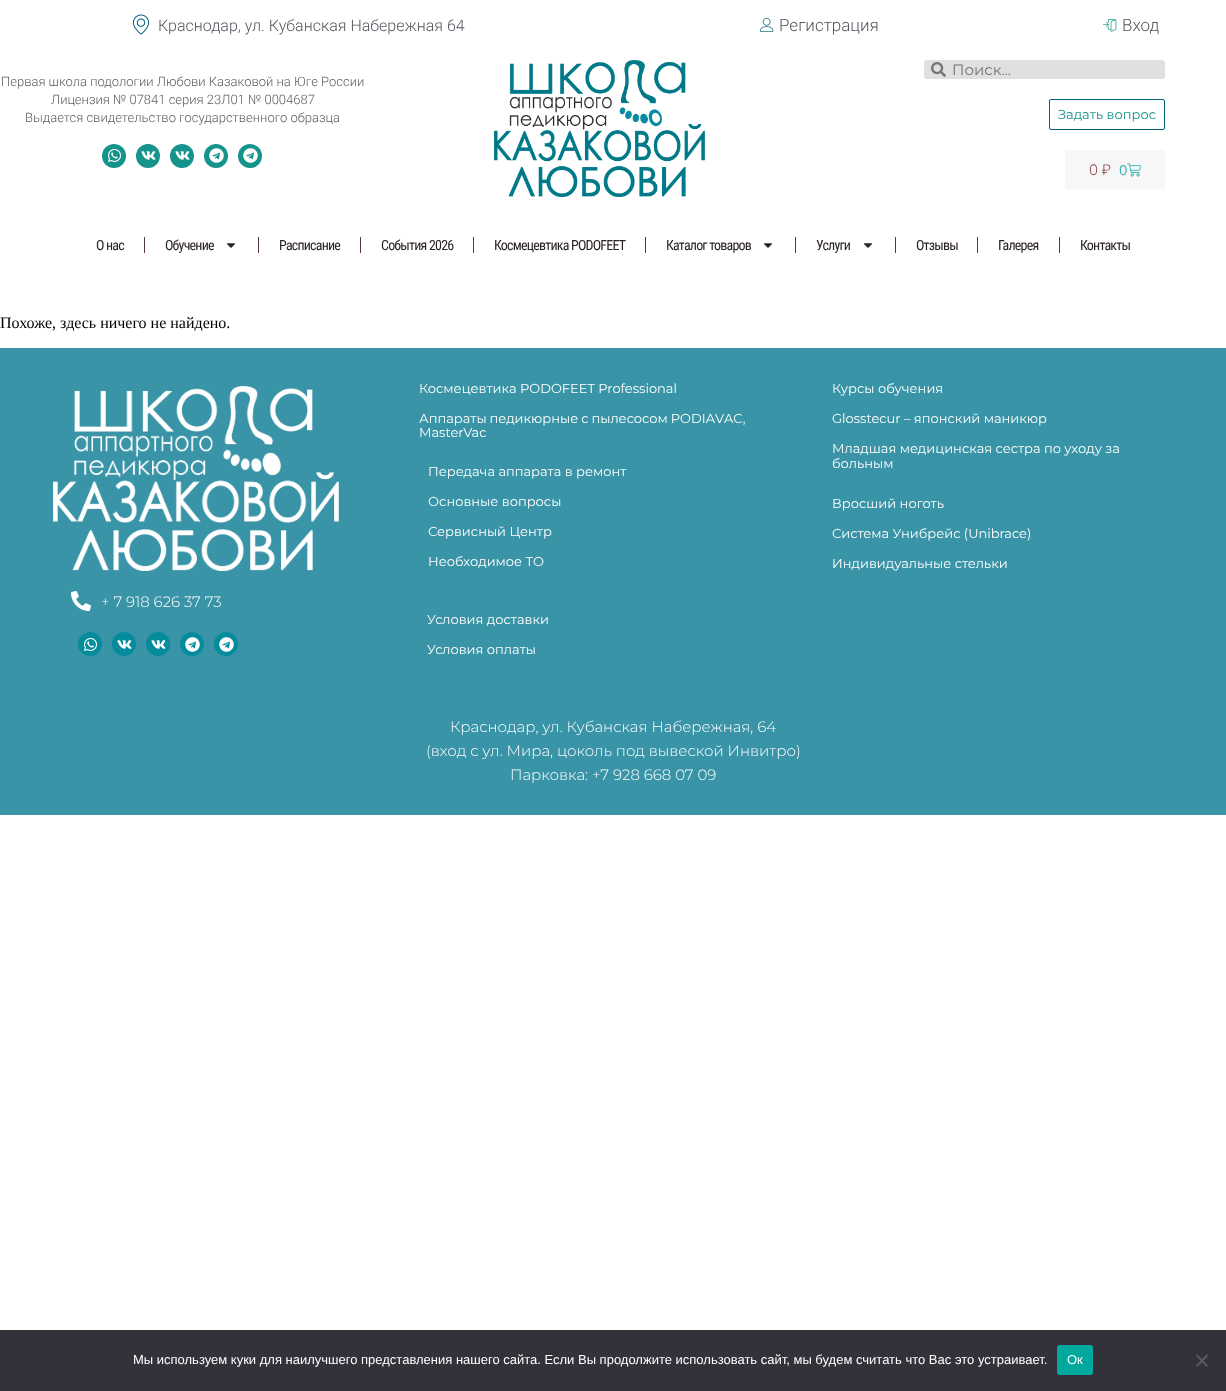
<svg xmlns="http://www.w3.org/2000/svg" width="1226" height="1391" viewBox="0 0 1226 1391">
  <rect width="100%" height="100%" fill="rgb(255,255,255)"/>
  <image x="132" y="14" width="18" height="21" href="pic1.png"/>
  <text x="158" y="31" font-family="Roboto" font-size="16" font-weight="300" fill="rgb(84,89,95)">Краснодар, ул. Кубанская Набережная 64</text>
  <image x="760" y="17" width="14" height="15" href="pic2.png"/>
  <text x="779" y="31" font-family="Roboto" font-size="17" font-weight="300" fill="rgb(84,89,95)">Регистрация</text>
  <image x="1103" y="19" width="14" height="13" href="pic3.png"/>
  <text x="1122" y="31" font-family="Roboto" font-size="17" font-weight="300" fill="rgb(84,89,95)">Вход</text>
  <g font-family="Roboto" font-size="13" font-weight="300" fill="rgb(93,93,93)">
    <text x="1" y="86">Первая школа подологии Любови Казаковой на Юге России</text>
    <text x="51" y="104">Лицензия № 07841 серия 23Л01 № 0004687</text>
    <text x="25" y="122">Выдается свидетельство государственного образца</text>
  </g>
  <circle cx="114" cy="156" r="12" fill="rgb(20,148,138)"/>
  <image x="108" y="148" width="14" height="14" href="pic4.png"/>
  <circle cx="148" cy="156" r="12" fill="rgb(20,148,138)"/>
  <image x="141" y="151" width="15" height="9" href="pic5.png"/>
  <circle cx="182" cy="156" r="12" fill="rgb(20,148,138)"/>
  <image x="175" y="151" width="15" height="9" href="pic5.png"/>
  <circle cx="216" cy="156" r="12" fill="rgb(20,148,138)"/>
  <image x="209" y="148" width="15" height="15" href="pic6.png"/>
  <circle cx="250" cy="156" r="12" fill="rgb(20,148,138)"/>
  <image x="243" y="148" width="15" height="15" href="pic6.png"/>
  <image x="494" y="60" width="211" height="137" href="pic7.png"/>
  <rect x="924" y="60" width="241" height="19" rx="3" fill="rgb(224,224,224)"/>
  <image x="931" y="62" width="15" height="15" href="pic8.png"/>
  <text x="952" y="75" font-family="Montserrat" font-size="15" fill="rgb(117,117,117)">Поиск...</text>
  <rect x="1049.5" y="99.5" width="115" height="30" rx="1.5" fill="none" stroke="rgb(4,99,123)"/>
  <text x="1058" y="119" font-family="Montserrat" font-size="13" fill="rgb(20,148,138)">Задать вопрос</text>
  <rect x="1065" y="150" width="100" height="39" fill="rgb(247,247,247)"/>
  <text x="1089" y="175" font-family="Mulish" font-size="15" font-weight="300" fill="rgb(138,70,70)">0 ₽</text>
  <text x="1119" y="175" font-family="Mulish" font-size="14" fill="rgb(45,177,172)">0</text>
  <image x="1127" y="163" width="14" height="14" href="pic9.png"/>
  <text x="96" y="250" font-family="Roboto Condensed" font-size="14" letter-spacing="-0.8" fill="rgb(44,35,35)">О нас</text>
  <rect x="144" y="237" width="1" height="16" fill="rgb(88,57,57)"/>
  <text x="165" y="250" font-family="Roboto Condensed" font-size="14" letter-spacing="-0.8" fill="rgb(44,35,35)">Обучение</text>
  <image x="227" y="243" width="8" height="5" href="pic10.png"/>
  <rect x="258" y="237" width="1" height="16" fill="rgb(88,57,57)"/>
  <text x="279" y="250" font-family="Roboto Condensed" font-size="14" letter-spacing="-0.8" fill="rgb(44,35,35)">Расписание</text>
  <rect x="360" y="237" width="1" height="16" fill="rgb(88,57,57)"/>
  <text x="381" y="250" font-family="Roboto Condensed" font-size="14" letter-spacing="-0.8" fill="rgb(44,35,35)">События 2026</text>
  <rect x="473" y="237" width="1" height="16" fill="rgb(88,57,57)"/>
  <text x="494" y="250" font-family="Roboto Condensed" font-size="14" letter-spacing="-0.8" fill="rgb(44,35,35)">Космецевтика PODOFEET</text>
  <rect x="645" y="237" width="1" height="16" fill="rgb(88,57,57)"/>
  <text x="666" y="250" font-family="Roboto Condensed" font-size="14" letter-spacing="-0.8" fill="rgb(44,35,35)">Каталог товаров</text>
  <image x="764" y="243" width="8" height="5" href="pic10.png"/>
  <rect x="795" y="237" width="1" height="16" fill="rgb(88,57,57)"/>
  <text x="816" y="250" font-family="Roboto Condensed" font-size="14" letter-spacing="-0.8" fill="rgb(44,35,35)">Услуги</text>
  <image x="864" y="243" width="8" height="5" href="pic10.png"/>
  <rect x="895" y="237" width="1" height="16" fill="rgb(88,57,57)"/>
  <text x="916" y="250" font-family="Roboto Condensed" font-size="14" letter-spacing="-0.8" fill="rgb(44,35,35)">Отзывы</text>
  <rect x="977" y="237" width="1" height="16" fill="rgb(88,57,57)"/>
  <text x="998" y="250" font-family="Roboto Condensed" font-size="14" letter-spacing="-0.8" fill="rgb(44,35,35)">Галерея</text>
  <rect x="1059" y="237" width="1" height="16" fill="rgb(88,57,57)"/>
  <text x="1080" y="250" font-family="Roboto Condensed" font-size="14" letter-spacing="-0.8" fill="rgb(44,35,35)">Контакты</text>
  <text x="0" y="328" font-family="Liberation Serif" font-size="16" fill="rgb(0,0,0)">Похоже, здесь ничего не найдено.</text>
  <rect x="0" y="348" width="1226" height="467" fill="rgb(58,148,167)"/>
  <g font-family="Montserrat" font-size="13" fill="rgb(255,255,255)">
    <text x="419" y="393">Космецевтика PODOFEET Professional</text>
    <text>
      <tspan x="419" y="423" word-spacing="-0.5">Аппараты педикюрные с пылесосом PODIAVAC,</tspan>
      <tspan x="419" y="437">MasterVac</tspan>
    </text>
    <text x="428" y="476">Передача аппарата в ремонт</text>
    <text x="428" y="506">Основные вопросы</text>
    <text x="428" y="536">Сервисный Центр</text>
    <text x="428" y="566">Необходимое ТО</text>
    <text x="427" y="624">Условия доставки</text>
    <text x="427" y="654">Условия оплаты</text>
    <text x="832" y="393">Курсы обучения</text>
    <text x="832" y="423">Glosstecur – японский маникюр</text>
    <text>
      <tspan x="832" y="453">Младшая медицинская сестра по уходу за</tspan>
      <tspan x="832" y="468">больным</tspan>
    </text>
    <text x="832" y="508">Вросший ноготь</text>
    <text x="832" y="538">Система Унибрейс (Unibrace)</text>
    <text x="832" y="568">Индивидуальные стельки</text>
  </g>
  <image x="53" y="386" width="286" height="185" href="pic11.png"/>
  <image x="71" y="591" width="20" height="20" href="pic12.png"/>
  <text x="101" y="607" font-family="Montserrat" font-size="15" font-weight="300" fill="rgb(255,255,255)">+ 7 918 626 37 73</text>
  <circle cx="90" cy="644" r="12" fill="rgb(4,140,156)"/>
  <image x="84" y="637" width="14" height="14" href="pic13.png"/>
  <circle cx="124" cy="644" r="12" fill="rgb(4,140,156)"/>
  <image x="117" y="640" width="15" height="9" href="pic14.png"/>
  <circle cx="158" cy="644" r="12" fill="rgb(4,140,156)"/>
  <image x="151" y="640" width="15" height="9" href="pic14.png"/>
  <circle cx="192" cy="644" r="12" fill="rgb(4,140,156)"/>
  <image x="185" y="637" width="15" height="15" href="pic15.png"/>
  <circle cx="226" cy="644" r="12" fill="rgb(4,140,156)"/>
  <image x="219" y="637" width="15" height="15" href="pic15.png"/>
  <g font-family="Montserrat" font-size="15" font-weight="300" fill="rgb(255,255,255)">
    <text x="450" y="732">Краснодар, ул. Кубанская Набережная, 64</text>
    <text x="426" y="756">(вход с ул. Мира, цоколь под вывеской Инвитро)</text>
    <text x="510" y="780">Парковка: +7 928 668 07 09</text>
  </g>
  <rect x="0" y="1330" width="1226" height="61" fill="rgb(50,50,58)"/>
  <text x="133" y="1364" font-family="Liberation Sans" font-size="13" fill="rgb(255,255,255)">Мы используем куки для наилучшего представления нашего сайта. Если Вы продолжите использовать сайт, мы будем считать что Вас это устраивает.</text>
  <rect x="1057" y="1345" width="36" height="30" rx="3" fill="rgb(0,169,157)"/>
  <text x="1067" y="1364" font-family="Liberation Sans" font-size="13" fill="rgb(255,255,255)">Ок</text>
  <path d="M1206.5 1354.5L1208 1356L1197.5 1367L1196 1365.5Z" fill="rgb(89,89,93)"/>
  <path d="M1196 1356L1197.5 1354.5L1208 1365.5L1206.5 1367Z" fill="rgb(89,89,93)"/>
</svg>
